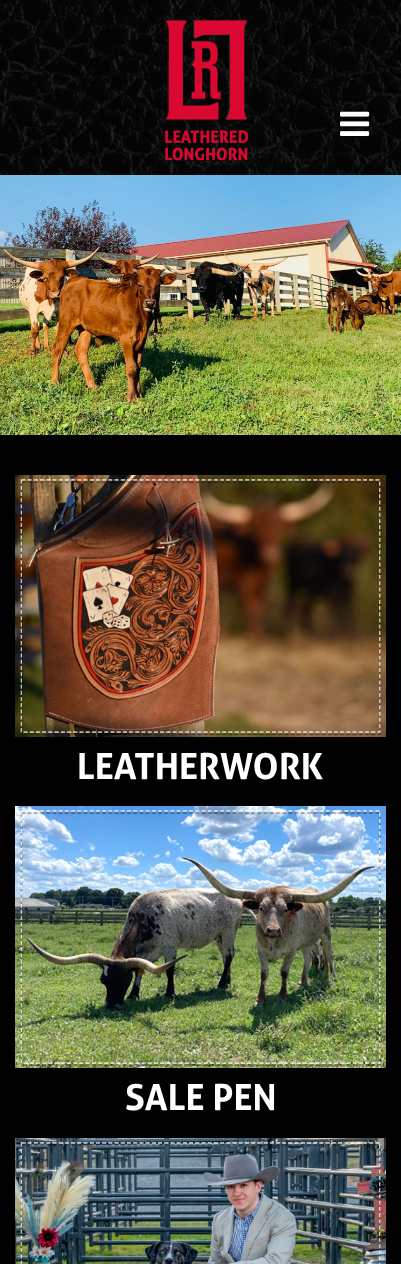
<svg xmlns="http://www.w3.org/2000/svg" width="401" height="1264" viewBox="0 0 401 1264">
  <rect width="100%" height="100%" fill="rgb(255,255,255)"/>
  <image x="0" y="0" width="401" height="175" href="pic1.png"/>
  <image x="165" y="20" width="83" height="141" href="pic2.png"/>
  <image x="340" y="111" width="30" height="25" href="pic3.png"/>
  <image x="0" y="175" width="401" height="260" href="pic4.png"/>
  <rect x="0" y="435" width="401" height="829" fill="rgb(0,0,0)"/>
  <image x="15" y="475" width="371" height="262" href="pic5.png"/>
  <text x="77" y="779" font-family="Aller" font-size="36" font-weight="bold" fill="rgb(255,255,255)">LEATHERWORK</text>
  <image x="15" y="806" width="371" height="262" href="pic6.png"/>
  <text x="125" y="1110" font-family="Aller" font-size="36" font-weight="bold" fill="rgb(255,255,255)">SALE PEN</text>
  <image x="15" y="1138" width="371" height="126" href="pic7.png"/>
</svg>
